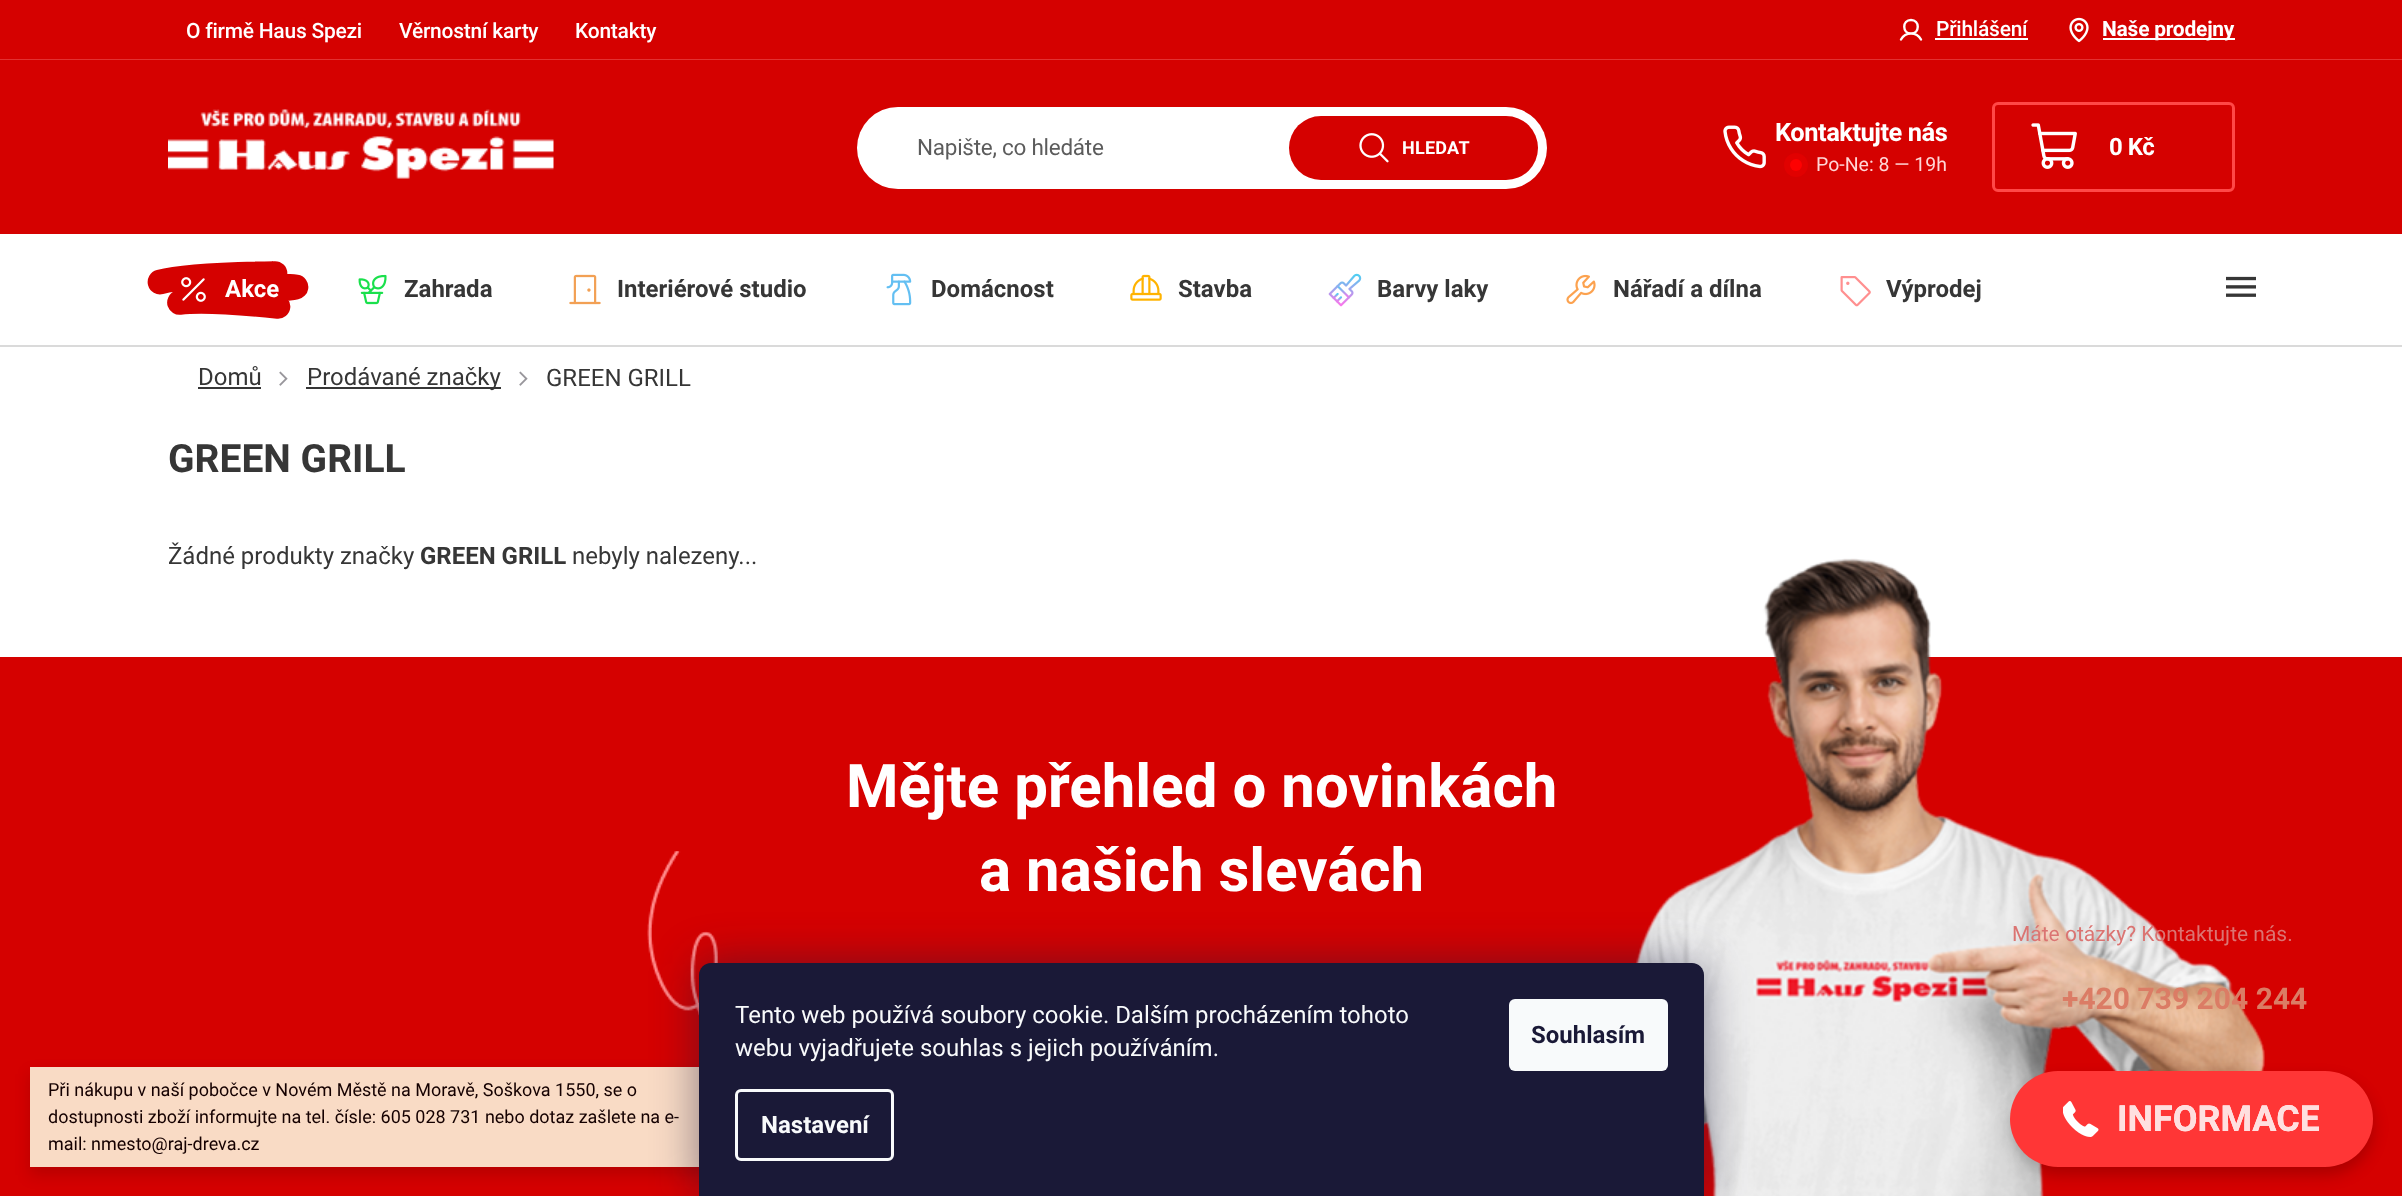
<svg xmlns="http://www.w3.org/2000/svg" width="2402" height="1196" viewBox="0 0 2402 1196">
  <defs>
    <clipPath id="clip1"><path d="M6 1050H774V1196H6ZM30 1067H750V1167H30Z" clip-rule="evenodd"/></clipPath>
    <clipPath id="clip2"><rect x="2117" y="1101" width="202" height="36"/></clipPath>
  </defs>
  <rect width="100%" height="100%" fill="rgb(255,255,255)"/>
  <rect x="0" y="0" width="2402" height="59" fill="rgb(213,1,0)"/>
  <rect x="0" y="59" width="2402" height="1" fill="rgb(227,49,49)"/>
  <g font-family="Roboto" font-size="21" font-weight="500" letter-spacing="-0.25" fill="rgb(255,255,255)">
    <text x="186" y="38">O firmě Haus Spezi</text>
    <text x="399" y="38">Věrnostní karty</text>
    <text x="575" y="38">Kontakty</text>
  </g>
  <path d="M1911 33.5C1920 33.5 1920 20 1911 20C1902 20 1902 33.5 1911 33.5ZM1901 39.5C1905.5 31.5 1916.5 31.5 1921 39.5" fill="none" stroke="rgb(255,255,255)" stroke-width="2.4" stroke-linecap="round" stroke-linejoin="round"/>
  <text x="1936" y="36" font-family="Roboto" font-size="21" font-weight="500" letter-spacing="-0.25" fill="rgb(255,255,255)">Přihlášení</text>
  <rect x="1935" y="38" width="93" height="2" fill="rgb(255,255,255)"/>
  <image x="2069" y="17" width="20" height="26" href="pic1.png"/>
  <rect x="2103" y="38" width="132" height="2" fill="rgb(255,255,255)"/>
  <text x="2102" y="36" font-family="Roboto" font-size="21" font-weight="bold" letter-spacing="-0.25" fill="rgb(255,255,255)">Naše prodejny</text>
  <rect x="0" y="60" width="2402" height="174" fill="rgb(213,1,0)"/>
  <rect x="0" y="345" width="2402" height="2" fill="rgb(218,218,218)"/>
  <image x="168" y="109" width="386" height="70" href="pic2.png"/>
  <rect x="857" y="107" width="690" height="82" rx="41" fill="rgb(255,255,255)"/>
  <text x="917" y="155" font-family="Roboto" font-size="22.5" letter-spacing="-0.25" fill="rgb(92,92,92)">Napište, co hledáte</text>
  <rect x="1289" y="116" width="249" height="64" rx="32" fill="rgb(213,1,0)"/>
  <image x="1359" y="133" width="30" height="30" href="pic3.png"/>
  <text x="1402" y="154" font-family="Roboto" font-size="18" font-weight="bold" letter-spacing="0.25" fill="rgb(255,255,255)">HLEDAT</text>
  <image x="1723" y="125" width="43" height="44" href="pic4.png"/>
  <text x="1775" y="141" font-family="Roboto" font-size="25.5" font-weight="bold" letter-spacing="-0.5" fill="rgb(255,255,255)">Kontaktujte nás</text>
  <circle cx="1796" cy="165" r="12" fill="rgb(225,1,0)"/>
  <circle cx="1796" cy="165" r="6" fill="rgb(254,1,1)"/>
  <text x="1816" y="171" font-family="Roboto" font-size="19.5" fill="rgb(255,214,214)">Po-Ne: 8 — 19h</text>
  <rect x="1993.5" y="103.5" width="240" height="87" rx="4.5" fill="none" stroke="rgb(255,72,71)" stroke-width="3"/>
  <image x="2031" y="123" width="46" height="46" href="pic5.png"/>
  <text x="2109" y="155" font-family="Roboto" font-size="24" font-weight="bold" letter-spacing="-0.5" fill="rgb(255,255,255)">0 Kč</text>
  <path d="M160 282C184.5 275.5 246 274 275 273.5C252 277.5 234.5 284.5 219 291C251.5 286.5 283 285 296 287C261.5 293.5 199.5 295.5 179.5 302.5C202.5 299.5 254 304 278 306.5" fill="none" stroke="rgb(213,1,0)" stroke-width="24.7" stroke-linecap="round" stroke-linejoin="round"/>
  <image x="181" y="277" width="25" height="25" href="pic6.png"/>
  <text x="225" y="297" font-family="Roboto" font-size="24" font-weight="bold" fill="rgb(255,255,255)">Akce</text>
  <image x="358" y="274" width="29" height="31" href="pic7.png"/>
  <text x="404" y="297" font-family="Roboto" font-size="24" font-weight="bold" fill="rgb(54,54,54)">Zahrada</text>
  <image x="569" y="274" width="32" height="31" href="pic8.png"/>
  <text x="617" y="297" font-family="Roboto" font-size="24" font-weight="bold" fill="rgb(54,54,54)">Interiérové studio</text>
  <image x="886" y="273" width="26" height="33" href="pic9.png"/>
  <text x="931" y="297" font-family="Roboto" font-size="24" font-weight="bold" fill="rgb(54,54,54)">Domácnost</text>
  <image x="1130" y="274" width="32" height="27" href="pic10.png"/>
  <text x="1178" y="297" font-family="Roboto" font-size="24" font-weight="bold" fill="rgb(54,54,54)">Stavba</text>
  <image x="1328" y="273" width="34" height="34" href="pic11.png"/>
  <text x="1377" y="297" font-family="Roboto" font-size="24" font-weight="bold" fill="rgb(54,54,54)">Barvy laky</text>
  <image x="1566" y="274" width="30" height="31" href="pic12.png"/>
  <text x="1613" y="297" font-family="Roboto" font-size="24" font-weight="bold" fill="rgb(54,54,54)">Nářadí a dílna</text>
  <image x="1840" y="276" width="31" height="31" href="pic13.png"/>
  <text x="1886" y="297" font-family="Roboto" font-size="24" font-weight="bold" fill="rgb(54,54,54)">Výprodej</text>
  <image x="2226" y="276" width="30" height="21" href="pic14.png"/>
  <text x="198" y="385" font-family="Roboto" font-size="24" fill="rgb(54,54,54)">Domů</text>
  <rect x="198" y="387" width="63" height="2" fill="rgb(54,54,54)"/>
  <image x="279" y="371" width="9" height="15" href="pic15.png"/>
  <rect x="306" y="387" width="195" height="2" fill="rgb(54,54,54)"/>
  <text x="307" y="385" font-family="Roboto" font-size="24" fill="rgb(54,54,54)">Prodávané značky</text>
  <image x="519" y="371" width="9" height="15" href="pic15.png"/>
  <text x="546" y="386" font-family="Roboto" font-size="24" fill="rgb(54,54,54)">GREEN GRILL</text>
  <text x="168" y="472" font-family="Roboto" font-size="39" font-weight="bold" fill="rgb(54,54,54)">GREEN GRILL</text>
  <text x="168" y="564" font-family="Roboto" font-size="24" fill="rgb(54,54,54)">Žádné produkty značky</text>
  <text x="420" y="564" font-family="Roboto" font-size="24" font-weight="bold" fill="rgb(54,54,54)">GREEN GRILL</text>
  <text x="572" y="564" font-family="Roboto" font-size="24" fill="rgb(54,54,54)">nebyly nalezeny...</text>
  <rect x="0" y="657" width="2402" height="539" fill="rgb(213,1,0)"/>
  <g font-family="Roboto" font-size="60" font-weight="bold" fill="rgb(255,255,255)">
    <text x="846" y="807">Mějte přehled o novinkách</text>
    <text x="979" y="891">a našich slevách</text>
  </g>
  <image x="1635" y="558" width="630" height="638" href="pic16.png"/>
  <image x="647" y="851" width="71" height="165" href="pic17.png"/>
  <g clip-path="url(#clip1)">
    <rect x="30" y="1074" width="720" height="101" fill="rgba(0,0,0,0.14)" filter="blur(7.5px)"/>
  </g>
  <rect x="30" y="1067" width="669" height="100" fill="rgba(253,243,218,0.9)"/>
  <g font-family="Roboto" font-size="18" fill="rgb(21,0,0)">
    <text>
      <tspan x="48" y="1096">Při nákupu v naší pobočce v Novém Městě na Moravě, Soškova 1550, se o</tspan>
      <tspan x="48" y="1123">dostupnosti zboží informujte na tel. čísle: 605 028 731 nebo dotaz zašlete na e-</tspan>
      <tspan x="48" y="1150">mail: nmesto@raj-dreva.cz</tspan>
    </text>
  </g>
  <rect x="699" y="963" width="1005" height="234" rx="12" fill="rgba(27,25,57,0.5)" filter="blur(22.5px)"/>
  <path d="M711 963H1692C1698.5 963 1704 968.5 1704 975V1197H699V975C699 968.5 704.5 963 711 963Z" fill="rgb(26,25,55)"/>
  <g font-family="Roboto" font-size="24" fill="rgb(248,250,251)">
    <text>
      <tspan x="735" y="1023">Tento web používá soubory cookie. Dalším procházením tohoto</tspan>
      <tspan x="735" y="1056">webu vyjadřujete souhlas s jejich používáním.</tspan>
    </text>
  </g>
  <rect x="736.5" y="1090.5" width="156" height="69" rx="4.5" fill="none" stroke="rgb(248,250,251)" stroke-width="3"/>
  <text x="761" y="1133" font-family="Roboto" font-size="24" font-weight="bold" fill="rgb(248,250,251)">Nastavení</text>
  <rect x="1509" y="999" width="159" height="72" rx="6" fill="rgb(248,250,251)"/>
  <text x="1531" y="1043" font-family="Roboto" font-size="24" font-weight="bold" fill="rgb(26,25,55)">Souhlasím</text>
  <text x="2012" y="941" font-family="Roboto" font-size="21" fill="rgb(219,116,114)">Máte otázky? Kontaktujte nás.</text>
  <text x="2062" y="1009" font-family="Roboto" font-size="30" font-weight="bold" fill="rgb(219,124,101)">+420 739 204 244</text>
  <rect x="2010" y="1079" width="363" height="96" rx="48" fill="rgba(0,0,0,0.2)" filter="blur(7.5px)"/>
  <rect x="2010" y="1071" width="363" height="96" rx="48" fill="rgb(255,54,54)"/>
  <image x="2063" y="1101" width="36" height="36" href="pic18.png"/>
  <g clip-path="url(#clip2)">
    <text x="2117" y="1131" font-family="Roboto" font-size="36" font-weight="bold" fill="rgb(255,255,255)">INFORMACE</text>
    <text x="2117" y="1131" font-family="Roboto" font-size="36" font-weight="bold" fill="rgb(255,223,223)">INFORMACE</text>
  </g>
</svg>
